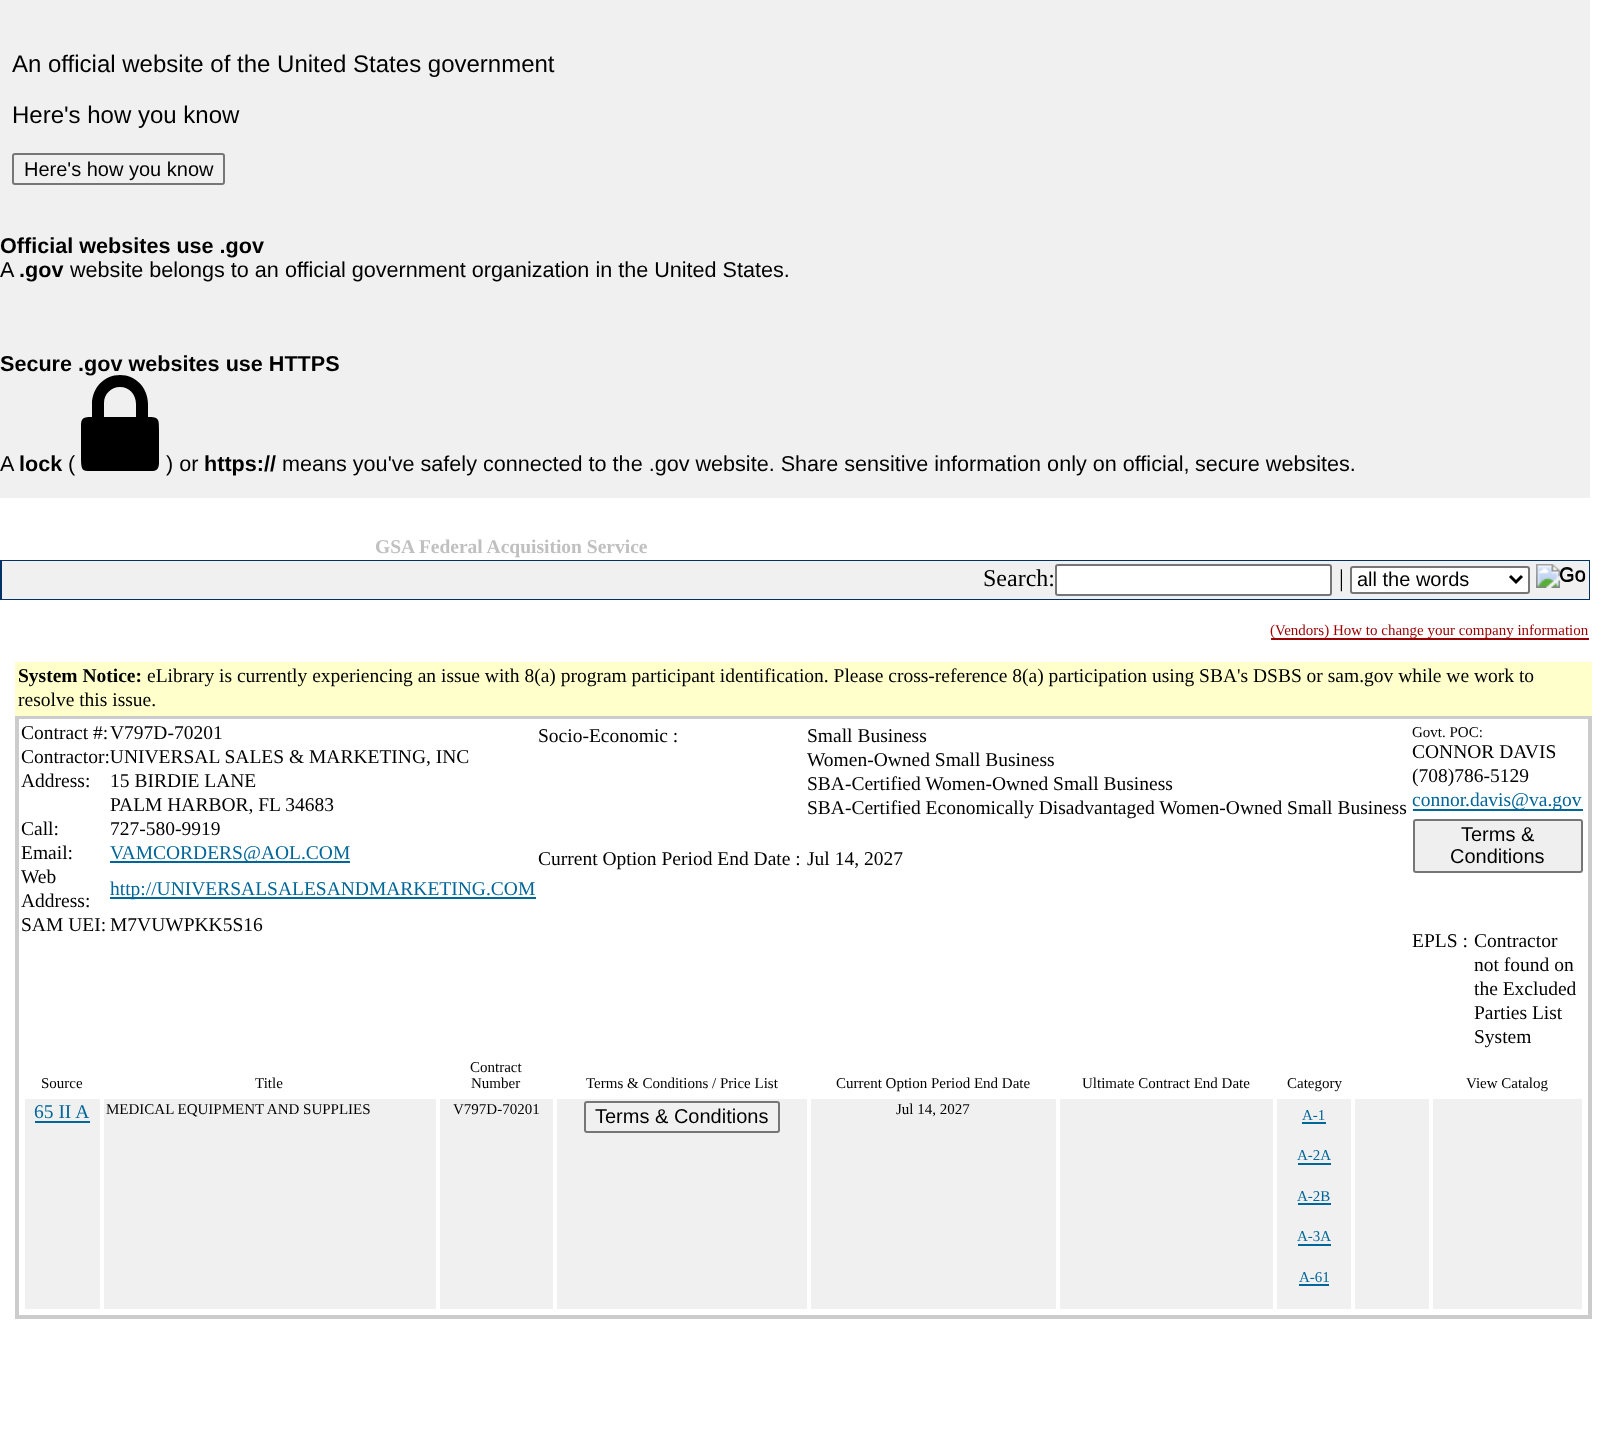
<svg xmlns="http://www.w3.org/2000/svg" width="1622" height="1441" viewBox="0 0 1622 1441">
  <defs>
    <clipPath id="clip1"><rect x="81" y="375" width="78" height="96"/></clipPath>
  </defs>
  <rect width="100%" height="100%" fill="rgb(255,255,255)"/>
  <rect x="0" y="0" width="1590" height="498" fill="rgb(240,240,240)"/>
  <g font-family="Liberation Sans" font-size="24" fill="rgb(0,0,0)">
    <text x="12" y="72">An official website of the United States government</text>
    <text x="12" y="123">Here's how you know</text>
  </g>
  <rect x="13" y="154" width="211" height="30" rx="2" fill="none" stroke="rgb(118,118,118)" stroke-width="2"/>
  <text x="24" y="176" font-family="Liberation Sans" font-size="20" fill="rgb(0,0,0)">Here's how you know</text>
  <text x="0" y="253" font-family="Liberation Sans" font-size="21.6" font-weight="bold" fill="rgb(0,0,0)">Official websites use .gov</text>
  <text x="0" y="277" font-family="Liberation Sans" font-size="21.6" fill="rgb(0,0,0)">A</text>
  <text x="19" y="277" font-family="Liberation Sans" font-size="21.6" font-weight="bold" fill="rgb(0,0,0)">.gov</text>
  <text x="70" y="277" font-family="Liberation Sans" font-size="21.6" fill="rgb(0,0,0)">website belongs to an official government organization in the United States.</text>
  <text x="0" y="371" font-family="Liberation Sans" font-size="21.6" font-weight="bold" fill="rgb(0,0,0)">Secure .gov websites use HTTPS</text>
  <text x="0" y="471" font-family="Liberation Sans" font-size="21.6" fill="rgb(0,0,0)">A</text>
  <text x="19" y="471" font-family="Liberation Sans" font-size="21.6" font-weight="bold" fill="rgb(0,0,0)">lock</text>
  <text x="68" y="471" font-family="Liberation Sans" font-size="21.6" fill="rgb(0,0,0)">(</text>
  <g clip-path="url(#clip1)">
    <path d="M120 375C136 375 148 388 148 404V417C159 417 159 419 159 430V458C159 463 160 471 153 471H98C83 471 81 473 81 458V430C81 419 81 417 92 417V404C92 388 104 375 120 375ZM120 387C111 387 104 394 104 403V417H136V404C136 394 129 387 120 387Z" fill="rgb(0,0,0)" fill-rule="evenodd"/>
  </g>
  <text x="166" y="471" font-family="Liberation Sans" font-size="21.6" fill="rgb(0,0,0)">) or</text>
  <text x="204" y="471" font-family="Liberation Sans" font-size="21.6" font-weight="bold" fill="rgb(0,0,0)">https://</text>
  <g font-family="Liberation Sans" font-size="21.6" fill="rgb(0,0,0)">
    <text x="282" y="471">means you've safely connected to the .gov website. Share sensitive information only on official,</text>
    <text x="1195" y="471">secure websites.</text>
  </g>
  <text x="375" y="553" font-family="Liberation Serif" font-size="19.5" font-weight="bold" fill="rgb(192,192,192)">GSA Federal Acquisition Service</text>
  <rect x="0" y="560" width="1590" height="40" fill="rgb(0,50,101)"/>
  <rect x="2" y="561" width="1587" height="38" fill="rgb(240,240,240)"/>
  <text x="983" y="586" font-family="Liberation Serif" font-size="24" fill="rgb(0,0,0)">Search:</text>
  <rect x="1056" y="565" width="275" height="30" rx="2" fill="rgb(255,255,255)" stroke="rgb(118,118,118)" stroke-width="2"/>
  <text x="1339" y="586" font-family="Liberation Serif" font-size="24" fill="rgb(0,0,0)">|</text>
  <rect x="1351" y="567" width="178" height="26" rx="2" fill="rgb(255,255,255)" stroke="rgb(118,118,118)" stroke-width="2"/>
  <path d="M1510 576L1516 582L1522 576" fill="none" stroke="rgb(0,0,0)" stroke-width="3"/>
  <text x="1357" y="586" font-family="Liberation Sans" font-size="20" fill="rgb(0,0,0)">all the words</text>
  <image x="1536" y="564" width="50" height="24" href="pic1.png"/>
  <text x="1559" y="581" font-family="Liberation Sans" font-size="20" fill="rgb(0,0,0)">Go</text>
  <rect x="1271" y="638" width="318" height="2" fill="rgb(153,0,0)"/>
  <text x="1270" y="635" font-family="Liberation Serif" font-size="15" fill="rgb(153,0,0)">(Vendors) How to change your company information</text>
  <rect x="15" y="662" width="1577" height="54" fill="rgb(255,255,204)"/>
  <text x="18" y="682" font-family="Liberation Serif" font-size="19.5" font-weight="bold" fill="rgb(0,0,0)">System Notice:</text>
  <g font-family="Liberation Serif" font-size="19.5" fill="rgb(0,0,0)">
    <text x="147" y="682">eLibrary is currently experiencing an issue with 8(a) program participant identification. Please cross-reference 8(a) participation using SBA's DSBS or sam.gov while we work to</text>
    <text x="18" y="706">resolve this issue.</text>
  </g>
  <rect x="16" y="717" width="1575" height="601" fill="none" stroke="rgb(204,204,204)" stroke-width="2"/>
  <rect x="18" y="718" width="1571" height="598" fill="none" stroke="rgb(204,204,204)" stroke-width="2"/>
  <g font-family="Liberation Serif" font-size="19.5" fill="rgb(0,0,0)">
    <text x="21" y="739">Contract #:</text>
    <text x="110" y="739">V797D-70201</text>
    <text>
      <tspan x="21" y="763">Contractor:UNIVERSAL SALES &amp; MARKETING, INC</tspan>
      <tspan x="21" y="787">Address:</tspan>
    </text>
    <text>
      <tspan x="110" y="787">15 BIRDIE LANE</tspan>
      <tspan x="110" y="811">PALM HARBOR, FL 34683</tspan>
    </text>
    <text x="21" y="835">Call:</text>
    <text x="110" y="835">727-580-9919</text>
    <text x="21" y="859">Email:</text>
  </g>
  <rect x="110" y="861" width="240" height="2" fill="rgb(0,102,153)"/>
  <text x="110" y="859" font-family="Liberation Serif" font-size="19.5" fill="rgb(0,102,153)">VAMCORDERS@AOL.COM</text>
  <g font-family="Liberation Serif" font-size="19.5" fill="rgb(0,0,0)">
    <text>
      <tspan x="21" y="883">Web</tspan>
      <tspan x="21" y="907">Address:</tspan>
    </text>
  </g>
  <rect x="110" y="897" width="426" height="2" fill="rgb(0,102,153)"/>
  <text x="110" y="895" font-family="Liberation Serif" font-size="19.5" fill="rgb(0,102,153)">http://UNIVERSALSALESANDMARKETING.COM</text>
  <g font-family="Liberation Serif" font-size="19.5" fill="rgb(0,0,0)">
    <text x="21" y="931">SAM UEI:</text>
    <text x="110" y="931">M7VUWPKK5S16</text>
    <text x="538" y="742">Socio-Economic :</text>
    <text>
      <tspan x="807" y="742">Small Business</tspan>
      <tspan x="807" y="766">Women-Owned Small Business</tspan>
      <tspan x="807" y="790">SBA-Certified Women-Owned Small Business</tspan>
      <tspan x="807" y="814">SBA-Certified Economically Disadvantaged Women-Owned Small Business</tspan>
    </text>
    <text x="538" y="865">Current Option Period End Date :</text>
    <text x="807" y="865">Jul 14, 2027</text>
  </g>
  <text x="1412" y="737" font-family="Liberation Serif" font-size="15" fill="rgb(0,0,0)">Govt. POC:</text>
  <g font-family="Liberation Serif" font-size="19.5" fill="rgb(0,0,0)">
    <text>
      <tspan x="1412" y="758">CONNOR DAVIS</tspan>
      <tspan x="1412" y="782">(708)786-5129</tspan>
    </text>
  </g>
  <rect x="1413" y="809" width="170" height="2" fill="rgb(0,102,153)"/>
  <text x="1412" y="806" font-family="Liberation Serif" font-size="19.5" fill="rgb(0,102,153)">connor.davis@va.gov</text>
  <rect x="1414" y="820" width="168" height="52" rx="2" fill="rgb(239,239,239)" stroke="rgb(118,118,118)" stroke-width="2"/>
  <g font-family="Liberation Sans" font-size="20" fill="rgb(0,0,0)">
    <text x="1461" y="841">Terms &amp;</text>
    <text x="1450" y="863">Conditions</text>
  </g>
  <g font-family="Liberation Serif" font-size="19.5" fill="rgb(0,0,0)">
    <text x="1412" y="947">EPLS :</text>
    <text>
      <tspan x="1474" y="947">Contractor</tspan>
      <tspan x="1474" y="971">not found on</tspan>
      <tspan x="1474" y="995">the Excluded</tspan>
      <tspan x="1474" y="1019">Parties List</tspan>
      <tspan x="1474" y="1043">System</tspan>
    </text>
  </g>
  <g font-family="Liberation Serif" font-size="15" fill="rgb(0,0,0)">
    <text x="41" y="1088">Source</text>
    <text x="255" y="1088">Title</text>
    <text x="470" y="1072">Contract</text>
    <text x="471" y="1088">Number</text>
    <text x="586" y="1088">Terms &amp; Conditions / Price List</text>
    <text x="836" y="1088">Current Option Period End Date</text>
    <text x="1082" y="1088">Ultimate Contract End Date</text>
    <text x="1287" y="1088">Category</text>
    <text x="1466" y="1088">View Catalog</text>
  </g>
  <rect x="25" y="1099" width="1557" height="210" fill="rgb(240,240,240)"/>
  <rect x="24" y="1098" width="77" height="212" fill="none" stroke="rgb(255,255,255)" stroke-width="2"/>
  <text x="34" y="1118" font-family="Liberation Serif" font-size="19.5" fill="rgb(0,102,153)">65 II A</text>
  <rect x="35" y="1121" width="55" height="2" fill="rgb(0,102,153)"/>
  <rect x="103" y="1098" width="334" height="212" fill="none" stroke="rgb(255,255,255)" stroke-width="2"/>
  <text x="106" y="1114" font-family="Liberation Serif" font-size="15" fill="rgb(0,0,0)">MEDICAL EQUIPMENT AND SUPPLIES</text>
  <rect x="439" y="1098" width="115" height="212" fill="none" stroke="rgb(255,255,255)" stroke-width="2"/>
  <text x="453" y="1114" font-family="Liberation Serif" font-size="15" fill="rgb(0,0,0)">V797D-70201</text>
  <rect x="556" y="1098" width="252" height="212" fill="none" stroke="rgb(255,255,255)" stroke-width="2"/>
  <rect x="585" y="1102" width="194" height="30" rx="2" fill="none" stroke="rgb(118,118,118)" stroke-width="2"/>
  <text x="595" y="1123" font-family="Liberation Sans" font-size="20" fill="rgb(0,0,0)">Terms &amp; Conditions</text>
  <rect x="810" y="1098" width="247" height="212" fill="none" stroke="rgb(255,255,255)" stroke-width="2"/>
  <text x="896" y="1114" font-family="Liberation Serif" font-size="15" fill="rgb(0,0,0)">Jul 14, 2027</text>
  <rect x="1059" y="1098" width="215" height="212" fill="none" stroke="rgb(255,255,255)" stroke-width="2"/>
  <rect x="1276" y="1098" width="76" height="212" fill="none" stroke="rgb(255,255,255)" stroke-width="2"/>
  <text x="1302" y="1120" font-family="Liberation Serif" font-size="15" fill="rgb(0,102,153)">A-1</text>
  <rect x="1302" y="1122" width="24" height="2" fill="rgb(0,102,153)"/>
  <text x="1297" y="1160" font-family="Liberation Serif" font-size="15" fill="rgb(0,102,153)">A-2A</text>
  <rect x="1298" y="1163" width="33" height="2" fill="rgb(0,102,153)"/>
  <text x="1297" y="1201" font-family="Liberation Serif" font-size="15" fill="rgb(0,102,153)">A-2B</text>
  <rect x="1298" y="1203" width="33" height="2" fill="rgb(0,102,153)"/>
  <text x="1297" y="1241" font-family="Liberation Serif" font-size="15" fill="rgb(0,102,153)">A-3A</text>
  <rect x="1298" y="1244" width="33" height="2" fill="rgb(0,102,153)"/>
  <text x="1299" y="1282" font-family="Liberation Serif" font-size="15" fill="rgb(0,102,153)">A-61</text>
  <rect x="1299" y="1284" width="30" height="2" fill="rgb(0,102,153)"/>
  <rect x="1354" y="1098" width="76" height="212" fill="none" stroke="rgb(255,255,255)" stroke-width="2"/>
  <rect x="1432" y="1098" width="151" height="212" fill="none" stroke="rgb(255,255,255)" stroke-width="2"/>
</svg>
